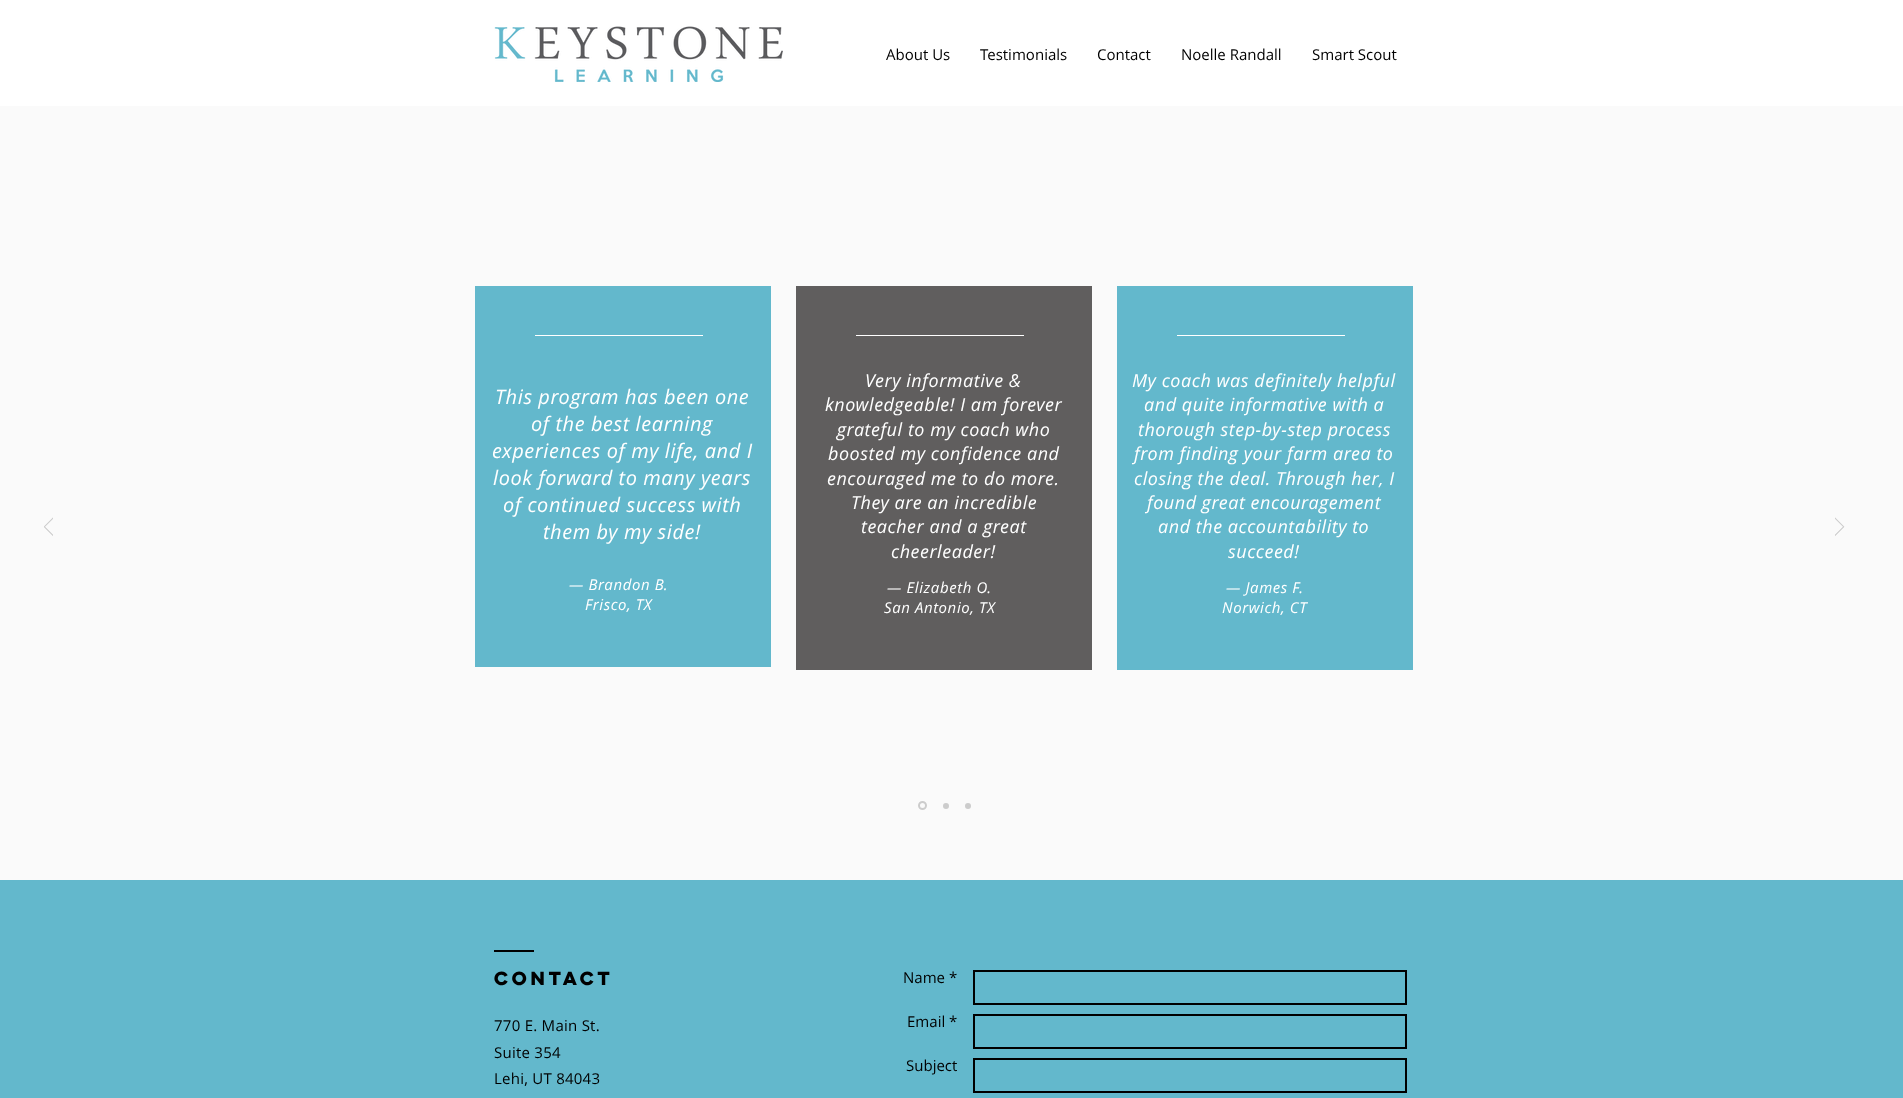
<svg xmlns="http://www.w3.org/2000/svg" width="1903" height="1098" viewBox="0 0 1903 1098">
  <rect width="100%" height="100%" fill="rgb(255,255,255)"/>
  <image x="494" y="26" width="289" height="56" href="pic1.png"/>
  <g font-family="Open Sans" font-size="15" fill="rgb(0,0,0)">
    <text x="886" y="60">About Us</text>
    <text x="980" y="60">Testimonials</text>
    <text x="1097" y="60">Contact</text>
    <text x="1181" y="60">Noelle Randall</text>
    <text x="1312" y="60">Smart Scout</text>
  </g>
  <rect x="0" y="106" width="1903" height="774" fill="rgb(250,250,250)"/>
  <image x="44" y="517" width="9" height="19" href="pic2.png"/>
  <rect x="475" y="286" width="296" height="381" fill="rgb(99,184,204)"/>
  <rect x="535" y="335" width="168" height="1" fill="rgb(255,255,255)"/>
  <g font-family="Open Sans" font-size="20" font-style="italic" letter-spacing="0.6" fill="rgb(255,255,255)">
    <text x="495" y="404">This program has been one</text>
    <text x="531" y="431">of the best learning</text>
    <text x="492" y="458">experiences of my life, and I</text>
    <text x="493" y="485">look forward to many years</text>
    <text x="503" y="512">of continued success with</text>
    <text x="543" y="539">them by my side!</text>
  </g>
  <g font-family="Open Sans" font-size="15" font-style="italic" letter-spacing="0.6" fill="rgb(255,255,255)">
    <text x="569" y="590">— Brandon B.</text>
    <text x="585" y="610">Frisco, TX</text>
  </g>
  <rect x="796" y="286" width="296" height="384" fill="rgb(96,94,94)"/>
  <rect x="856" y="335" width="168" height="1" fill="rgb(255,255,255)"/>
  <g font-family="Open Sans" font-size="18" font-style="italic" letter-spacing="0.55" fill="rgb(255,255,255)">
    <text x="865" y="387">Very informative &amp;</text>
    <text x="825" y="411">knowledgeable! I am forever</text>
    <text x="837" y="436">grateful to my coach who</text>
    <text x="828" y="460">boosted my confidence and</text>
    <text x="827" y="485">encouraged me to do more.</text>
    <text x="851" y="509">They are an incredible</text>
    <text x="861" y="533">teacher and a great</text>
    <text x="891" y="558">cheerleader!</text>
  </g>
  <g font-family="Open Sans" font-size="15" font-style="italic" letter-spacing="0.6" fill="rgb(255,255,255)">
    <text x="887" y="593">— Elizabeth O.</text>
    <text x="884" y="613">San Antonio, TX</text>
  </g>
  <rect x="1117" y="286" width="296" height="384" fill="rgb(99,184,204)"/>
  <rect x="1177" y="335" width="168" height="1" fill="rgb(255,255,255)"/>
  <g font-family="Open Sans" font-size="18" font-style="italic" letter-spacing="0.55" fill="rgb(255,255,255)">
    <text x="1132" y="387">My coach was definitely helpful</text>
    <text x="1144" y="411">and quite informative with a</text>
    <text x="1138" y="436">thorough step-by-step process</text>
    <text>
      <tspan x="1134" y="460">from finding your farm area to</tspan>
      <tspan x="1134" y="485">closing the deal. Through her, I</tspan>
    </text>
    <text x="1147" y="509">found great encouragement</text>
    <text x="1158" y="533">and the accountability to</text>
    <text x="1228" y="558">succeed!</text>
  </g>
  <g font-family="Open Sans" font-size="15" font-style="italic" letter-spacing="0.6" fill="rgb(255,255,255)">
    <text x="1226" y="593">— James F.</text>
    <text x="1222" y="613">Norwich, CT</text>
  </g>
  <image x="1835" y="517" width="10" height="19" href="pic3.png"/>
  <circle cx="922.5" cy="805.5" r="3.5" fill="none" stroke="rgb(204,204,204)" stroke-width="2"/>
  <circle cx="946" cy="806" r="3" fill="rgb(204,204,204)"/>
  <circle cx="968" cy="806" r="3" fill="rgb(204,204,204)"/>
  <rect x="0" y="880" width="1903" height="218" fill="rgb(99,184,204)"/>
  <rect x="494" y="950" width="40" height="2" fill="rgb(0,0,0)"/>
  <text x="494" y="985" font-family="'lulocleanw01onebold'" font-size="17" font-weight="bold" fill="rgb(0,0,0)">Contact</text>
  <text x="903" y="983" font-family="Open Sans" font-size="15" fill="rgb(0,0,0)">Name *</text>
  <rect x="974" y="971" width="432" height="33" fill="none" stroke="rgb(0,0,0)" stroke-width="2"/>
  <text x="907" y="1027" font-family="Open Sans" font-size="15" fill="rgb(0,0,0)">Email *</text>
  <rect x="974" y="1015" width="432" height="33" fill="none" stroke="rgb(0,0,0)" stroke-width="2"/>
  <text x="906" y="1071" font-family="Open Sans" font-size="15" fill="rgb(0,0,0)">Subject</text>
  <rect x="974" y="1059" width="432" height="33" fill="none" stroke="rgb(0,0,0)" stroke-width="2"/>
  <g font-family="Open Sans" font-size="15" letter-spacing="0.25" fill="rgb(0,0,0)">
    <text>
      <tspan x="494" y="1031">770 E. Main St.</tspan>
      <tspan x="494" y="1058">Suite 354</tspan>
      <tspan x="494" y="1084">Lehi, UT 84043</tspan>
    </text>
  </g>
</svg>
